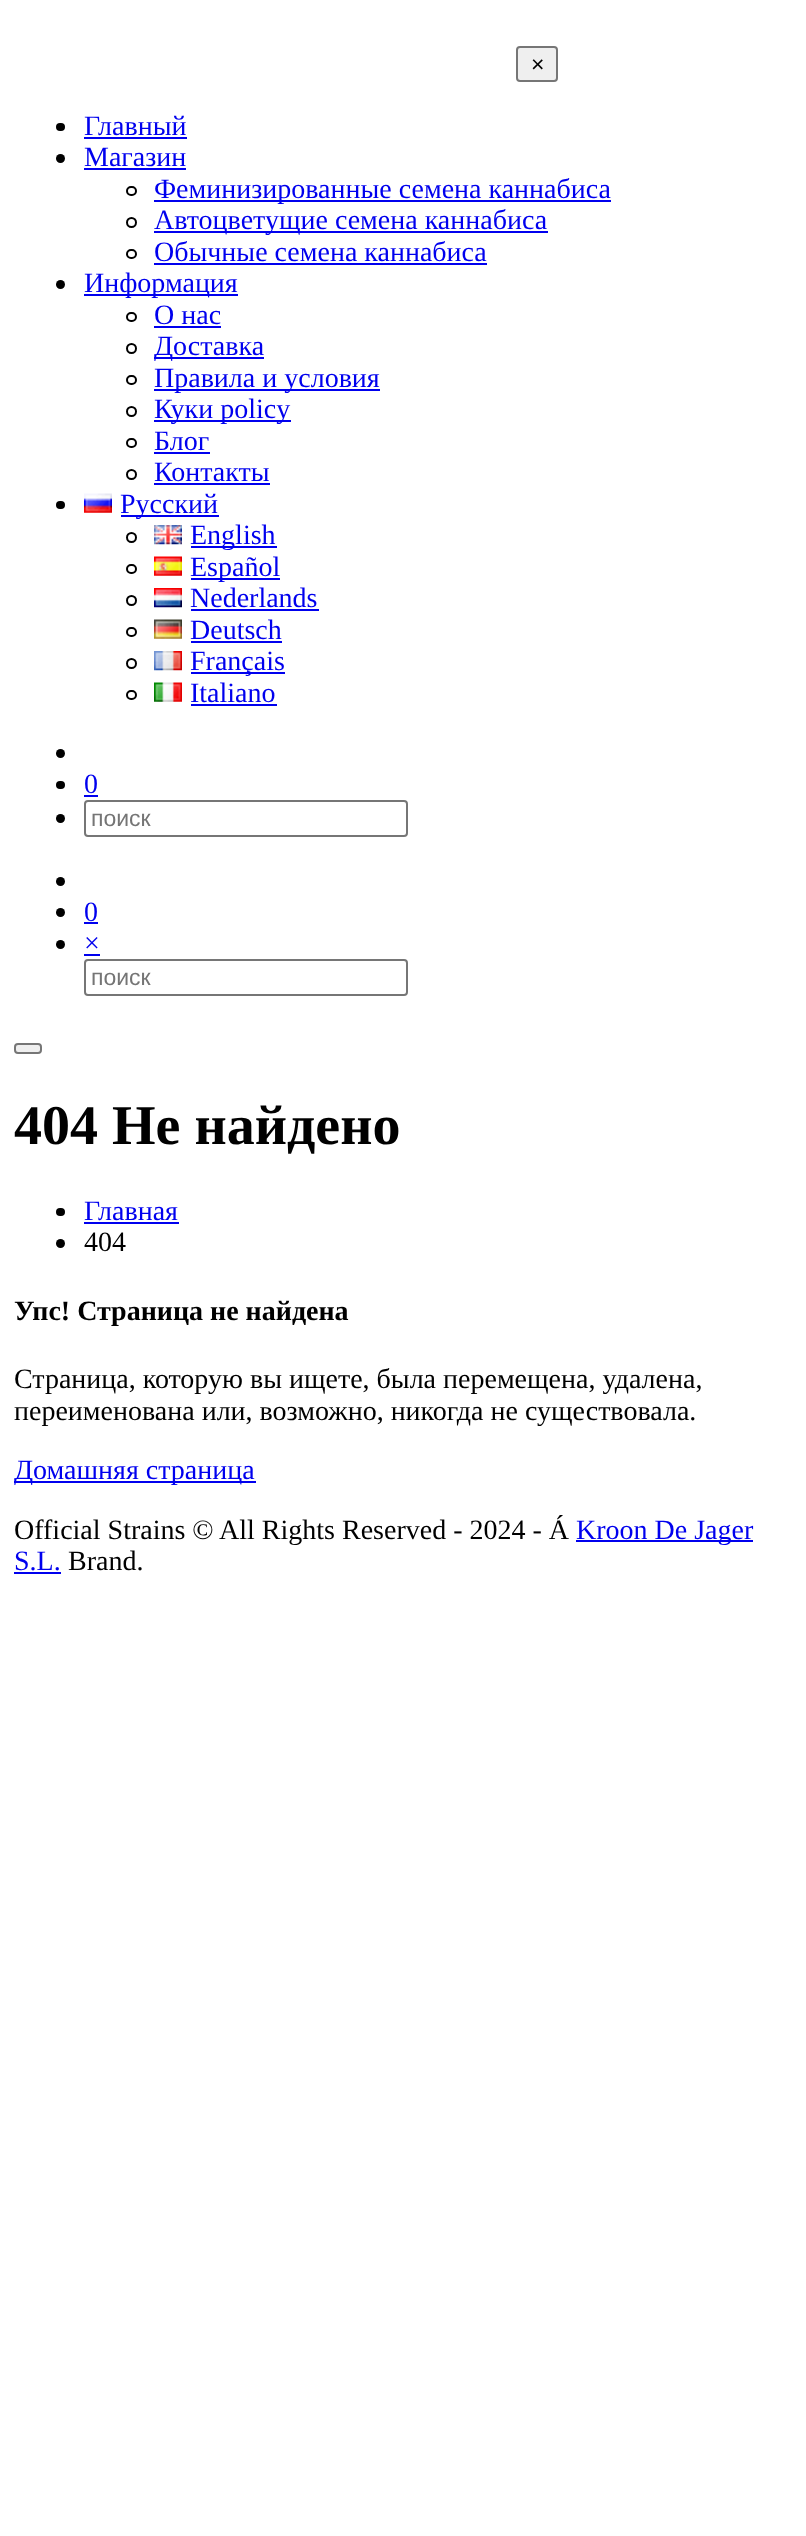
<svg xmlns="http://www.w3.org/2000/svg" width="806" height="2536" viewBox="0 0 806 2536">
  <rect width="100%" height="100%" fill="rgb(255,255,255)"/>
  <rect x="517" y="47" width="40" height="34" rx="3" fill="rgb(239,239,239)" stroke="rgb(118,118,118)" stroke-width="2"/>
  <text x="531" y="72" font-family="Liberation Sans" font-size="23" fill="rgb(0,0,0)">×</text>
  <rect x="56" y="123" width="9" height="8" rx="4" fill="rgb(0,0,0)"/>
  <text x="84" y="135" font-family="Liberation Serif" font-size="28" fill="rgb(0,0,238)">Главный</text>
  <rect x="84" y="137" width="103" height="2" fill="rgb(0,0,238)"/>
  <circle cx="60.5" cy="158.5" r="4.5" fill="rgb(0,0,0)"/>
  <text x="84" y="166" font-family="Liberation Serif" font-size="28" fill="rgb(0,0,238)">Магазин</text>
  <rect x="84" y="168" width="102" height="2" fill="rgb(0,0,238)"/>
  <rect x="127" y="187" width="9" height="8" rx="4" fill="none" stroke="rgb(0,0,0)" stroke-width="2"/>
  <rect x="154" y="200" width="457" height="2" fill="rgb(0,0,238)"/>
  <text x="154" y="198" font-family="Liberation Serif" font-size="28" fill="rgb(0,0,238)">Феминизированные семена каннабиса</text>
  <circle cx="131.5" cy="222.5" r="4.5" fill="none" stroke="rgb(0,0,0)" stroke-width="2"/>
  <rect x="154" y="231" width="394" height="2" fill="rgb(0,0,238)"/>
  <text x="154" y="229" font-family="Liberation Serif" font-size="28" fill="rgb(0,0,238)">Автоцветущие семена каннабиса</text>
  <rect x="127" y="250" width="9" height="8" rx="4" fill="none" stroke="rgb(0,0,0)" stroke-width="2"/>
  <text x="154" y="261" font-family="Liberation Serif" font-size="28" fill="rgb(0,0,238)">Обычные семена каннабиса</text>
  <rect x="154" y="263" width="333" height="2" fill="rgb(0,0,238)"/>
  <circle cx="60.5" cy="284.5" r="4.5" fill="rgb(0,0,0)"/>
  <rect x="84" y="294" width="154" height="2" fill="rgb(0,0,238)"/>
  <text x="84" y="292" font-family="Liberation Serif" font-size="28" fill="rgb(0,0,238)">Информация</text>
  <rect x="127" y="313" width="9" height="8" rx="4" fill="none" stroke="rgb(0,0,0)" stroke-width="2"/>
  <text x="154" y="324" font-family="Liberation Serif" font-size="28" fill="rgb(0,0,238)">О нас</text>
  <rect x="154" y="326" width="67" height="2" fill="rgb(0,0,238)"/>
  <circle cx="131.5" cy="348.5" r="4.5" fill="none" stroke="rgb(0,0,0)" stroke-width="2"/>
  <rect x="154" y="357" width="110" height="2" fill="rgb(0,0,238)"/>
  <text x="154" y="355" font-family="Liberation Serif" font-size="28" fill="rgb(0,0,238)">Доставка</text>
  <rect x="127" y="376" width="9" height="8" rx="4" fill="none" stroke="rgb(0,0,0)" stroke-width="2"/>
  <rect x="154" y="389" width="226" height="2" fill="rgb(0,0,238)"/>
  <text x="154" y="387" font-family="Liberation Serif" font-size="28" fill="rgb(0,0,238)">Правила и условия</text>
  <circle cx="131.5" cy="411.5" r="4.5" fill="none" stroke="rgb(0,0,0)" stroke-width="2"/>
  <rect x="154" y="420" width="137" height="2" fill="rgb(0,0,238)"/>
  <text x="154" y="418" font-family="Liberation Serif" font-size="28" fill="rgb(0,0,238)">Куки policy</text>
  <rect x="127" y="439" width="9" height="8" rx="4" fill="none" stroke="rgb(0,0,0)" stroke-width="2"/>
  <text x="154" y="450" font-family="Liberation Serif" font-size="28" fill="rgb(0,0,238)">Блог</text>
  <rect x="154" y="452" width="56" height="2" fill="rgb(0,0,238)"/>
  <circle cx="131.5" cy="474.5" r="4.5" fill="none" stroke="rgb(0,0,0)" stroke-width="2"/>
  <text x="154" y="481" font-family="Liberation Serif" font-size="28" fill="rgb(0,0,238)">Контакты</text>
  <rect x="154" y="483" width="116" height="2" fill="rgb(0,0,238)"/>
  <rect x="56" y="501" width="9" height="8" rx="4" fill="rgb(0,0,0)"/>
  <image x="84" y="493" width="28" height="20" href="pic1.png"/>
  <rect x="121" y="515" width="98" height="2" fill="rgb(0,0,238)"/>
  <text x="120" y="513" font-family="Liberation Serif" font-size="28" fill="rgb(0,0,238)">Русский</text>
  <circle cx="131.5" cy="537.5" r="4.5" fill="none" stroke="rgb(0,0,0)" stroke-width="2"/>
  <image x="154" y="525" width="28" height="20" href="pic2.png"/>
  <rect x="191" y="546" width="86" height="2" fill="rgb(0,0,238)"/>
  <text x="190" y="544" font-family="Liberation Serif" font-size="28" fill="rgb(0,0,238)">English</text>
  <rect x="127" y="565" width="9" height="8" rx="4" fill="none" stroke="rgb(0,0,0)" stroke-width="2"/>
  <image x="154" y="556" width="28" height="20" href="pic3.png"/>
  <rect x="191" y="578" width="89" height="2" fill="rgb(0,0,238)"/>
  <text x="190" y="576" font-family="Liberation Serif" font-size="28" fill="rgb(0,0,238)">Español</text>
  <circle cx="131.5" cy="600.5" r="4.5" fill="none" stroke="rgb(0,0,0)" stroke-width="2"/>
  <image x="154" y="588" width="28" height="20" href="pic4.png"/>
  <text x="190" y="607" font-family="Liberation Serif" font-size="28" fill="rgb(0,0,238)">Nederlands</text>
  <rect x="191" y="609" width="128" height="2" fill="rgb(0,0,238)"/>
  <rect x="127" y="628" width="9" height="8" rx="4" fill="none" stroke="rgb(0,0,0)" stroke-width="2"/>
  <image x="154" y="619" width="28" height="20" href="pic5.png"/>
  <text x="190" y="639" font-family="Liberation Serif" font-size="28" fill="rgb(0,0,238)">Deutsch</text>
  <rect x="191" y="641" width="91" height="2" fill="rgb(0,0,238)"/>
  <circle cx="131.5" cy="663.5" r="4.5" fill="none" stroke="rgb(0,0,0)" stroke-width="2"/>
  <image x="154" y="651" width="28" height="20" href="pic6.png"/>
  <rect x="191" y="672" width="94" height="2" fill="rgb(0,0,238)"/>
  <text x="190" y="670" font-family="Liberation Serif" font-size="28" fill="rgb(0,0,238)">Français</text>
  <rect x="127" y="691" width="9" height="8" rx="4" fill="none" stroke="rgb(0,0,0)" stroke-width="2"/>
  <image x="154" y="682" width="28" height="20" href="pic7.png"/>
  <text x="190" y="702" font-family="Liberation Serif" font-size="28" fill="rgb(0,0,238)">Italiano</text>
  <rect x="191" y="704" width="86" height="2" fill="rgb(0,0,238)"/>
  <circle cx="60.5" cy="753.5" r="4.5" fill="rgb(0,0,0)"/>
  <rect x="56" y="781" width="9" height="8" rx="4" fill="rgb(0,0,0)"/>
  <text x="84" y="793" font-family="Liberation Serif" font-size="28" fill="rgb(0,0,238)">0</text>
  <rect x="84" y="795" width="14" height="2" fill="rgb(0,0,238)"/>
  <circle cx="60.5" cy="818.5" r="4.5" fill="rgb(0,0,0)"/>
  <rect x="85" y="801" width="322" height="35" rx="3" fill="none" stroke="rgb(118,118,118)" stroke-width="2"/>
  <text x="91" y="826" font-family="Liberation Sans" font-size="23" fill="rgb(117,117,117)">поиск</text>
  <circle cx="60.5" cy="881.5" r="4.5" fill="rgb(0,0,0)"/>
  <circle cx="60.5" cy="912.5" r="4.5" fill="rgb(0,0,0)"/>
  <text x="84" y="921" font-family="Liberation Serif" font-size="28" fill="rgb(0,0,238)">0</text>
  <rect x="84" y="922" width="14" height="2" fill="rgb(0,0,238)"/>
  <circle cx="60.5" cy="944.5" r="4.5" fill="rgb(0,0,0)"/>
  <text x="84" y="952" font-family="Liberation Serif" font-size="28" fill="rgb(0,0,238)">×</text>
  <rect x="84" y="954" width="16" height="2" fill="rgb(0,0,238)"/>
  <rect x="85" y="960" width="322" height="35" rx="3" fill="none" stroke="rgb(118,118,118)" stroke-width="2"/>
  <text x="91" y="985" font-family="Liberation Sans" font-size="23" fill="rgb(117,117,117)">поиск</text>
  <rect x="15" y="1044" width="26" height="9" rx="3" fill="rgb(239,239,239)" stroke="rgb(118,118,118)" stroke-width="2"/>
  <text x="14" y="1144" font-family="Liberation Serif" font-size="56" font-weight="bold" fill="rgb(0,0,0)">404 Не найдено</text>
  <rect x="56" y="1208" width="9" height="8" rx="4" fill="rgb(0,0,0)"/>
  <text x="84" y="1220" font-family="Liberation Serif" font-size="28" fill="rgb(0,0,238)">Главная</text>
  <rect x="84" y="1222" width="95" height="2" fill="rgb(0,0,238)"/>
  <circle cx="60.5" cy="1243.5" r="4.5" fill="rgb(0,0,0)"/>
  <text x="84" y="1251" font-family="Liberation Serif" font-size="28" fill="rgb(0,0,0)">404</text>
  <text x="14" y="1320" font-family="Liberation Serif" font-size="28" font-weight="bold" fill="rgb(0,0,0)">Упс! Страница не найдена</text>
  <g font-family="Liberation Serif" font-size="28" fill="rgb(0,0,0)">
    <text>
      <tspan x="14" y="1388">Страница, которую вы ищете, была перемещена, удалена,</tspan>
      <tspan x="14" y="1420">переименована или, возможно, никогда не существовала.</tspan>
    </text>
  </g>
  <rect x="14" y="1481" width="242" height="2" fill="rgb(0,0,238)"/>
  <text x="14" y="1479" font-family="Liberation Serif" font-size="28" fill="rgb(0,0,238)">Домашняя страница</text>
  <text x="14" y="1539" font-family="Liberation Serif" font-size="28" fill="rgb(0,0,0)">Official Strains © All Rights Reserved - 2024 - Á</text>
  <rect x="576" y="1540" width="177" height="2" fill="rgb(0,0,238)"/>
  <g font-family="Liberation Serif" font-size="28" fill="rgb(0,0,238)">
    <text x="576" y="1539">Kroon De Jager</text>
    <text x="14" y="1570">S.L.</text>
  </g>
  <rect x="14" y="1572" width="47" height="2" fill="rgb(0,0,238)"/>
  <text x="68" y="1570" font-family="Liberation Serif" font-size="28" fill="rgb(0,0,0)">Brand.</text>
</svg>
